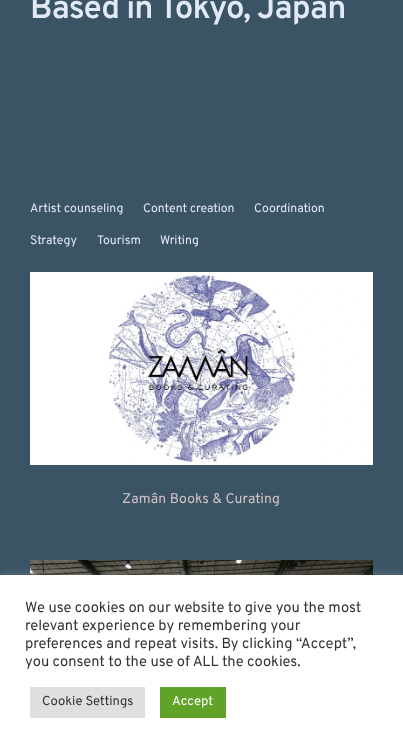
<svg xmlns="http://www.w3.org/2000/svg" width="403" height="748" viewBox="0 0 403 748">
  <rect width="100%" height="100%" fill="rgb(58,84,101)"/>
  <text x="30" y="18" font-family="Overpass" font-size="33" font-weight="600" letter-spacing="-1" fill="rgb(225,233,245)">Based in Tokyo, Japan</text>
  <g font-family="Overpass" font-size="12.25" fill="rgb(225,233,245)">
    <text x="30" y="212">Artist counseling</text>
    <text x="143" y="212">Content creation</text>
    <text x="254" y="212">Coordination</text>
    <text x="30" y="244">Strategy</text>
    <text x="97" y="244">Tourism</text>
    <text x="160" y="244">Writing</text>
  </g>
  <image x="30" y="272" width="343" height="193" href="pic1.png"/>
  <text x="122" y="503" font-family="Overpass" font-size="14" letter-spacing="0.1" fill="rgb(211,194,197)">Zamân Books &amp; Curating</text>
  <image x="30" y="560" width="343" height="15" href="pic2.png"/>
  <rect x="0" y="574" width="403" height="173" fill="rgba(172,171,171,0.3)" filter="blur(5px)"/>
  <rect x="0" y="575" width="403" height="173" fill="rgb(255,255,255)"/>
  <g font-family="Overpass" font-size="14.7" fill="rgb(51,51,51)">
    <text>
      <tspan x="25" y="612">We use cookies on our website to give you the most</tspan>
      <tspan x="25" y="630">relevant experience by remembering your</tspan>
      <tspan x="25" y="648">preferences and repeat visits. By clicking “Accept”,</tspan>
      <tspan x="25" y="666">you consent to the use of ALL the cookies.</tspan>
    </text>
  </g>
  <rect x="30" y="687" width="115" height="31" fill="rgb(222,223,224)"/>
  <text x="42" y="705" font-family="Overpass" font-size="13" fill="rgb(51,51,51)">Cookie Settings</text>
  <rect x="160" y="687" width="66" height="31" fill="rgb(97,162,41)"/>
  <text x="172" y="705" font-family="Overpass" font-size="13" fill="rgb(255,255,255)">Accept</text>
</svg>
